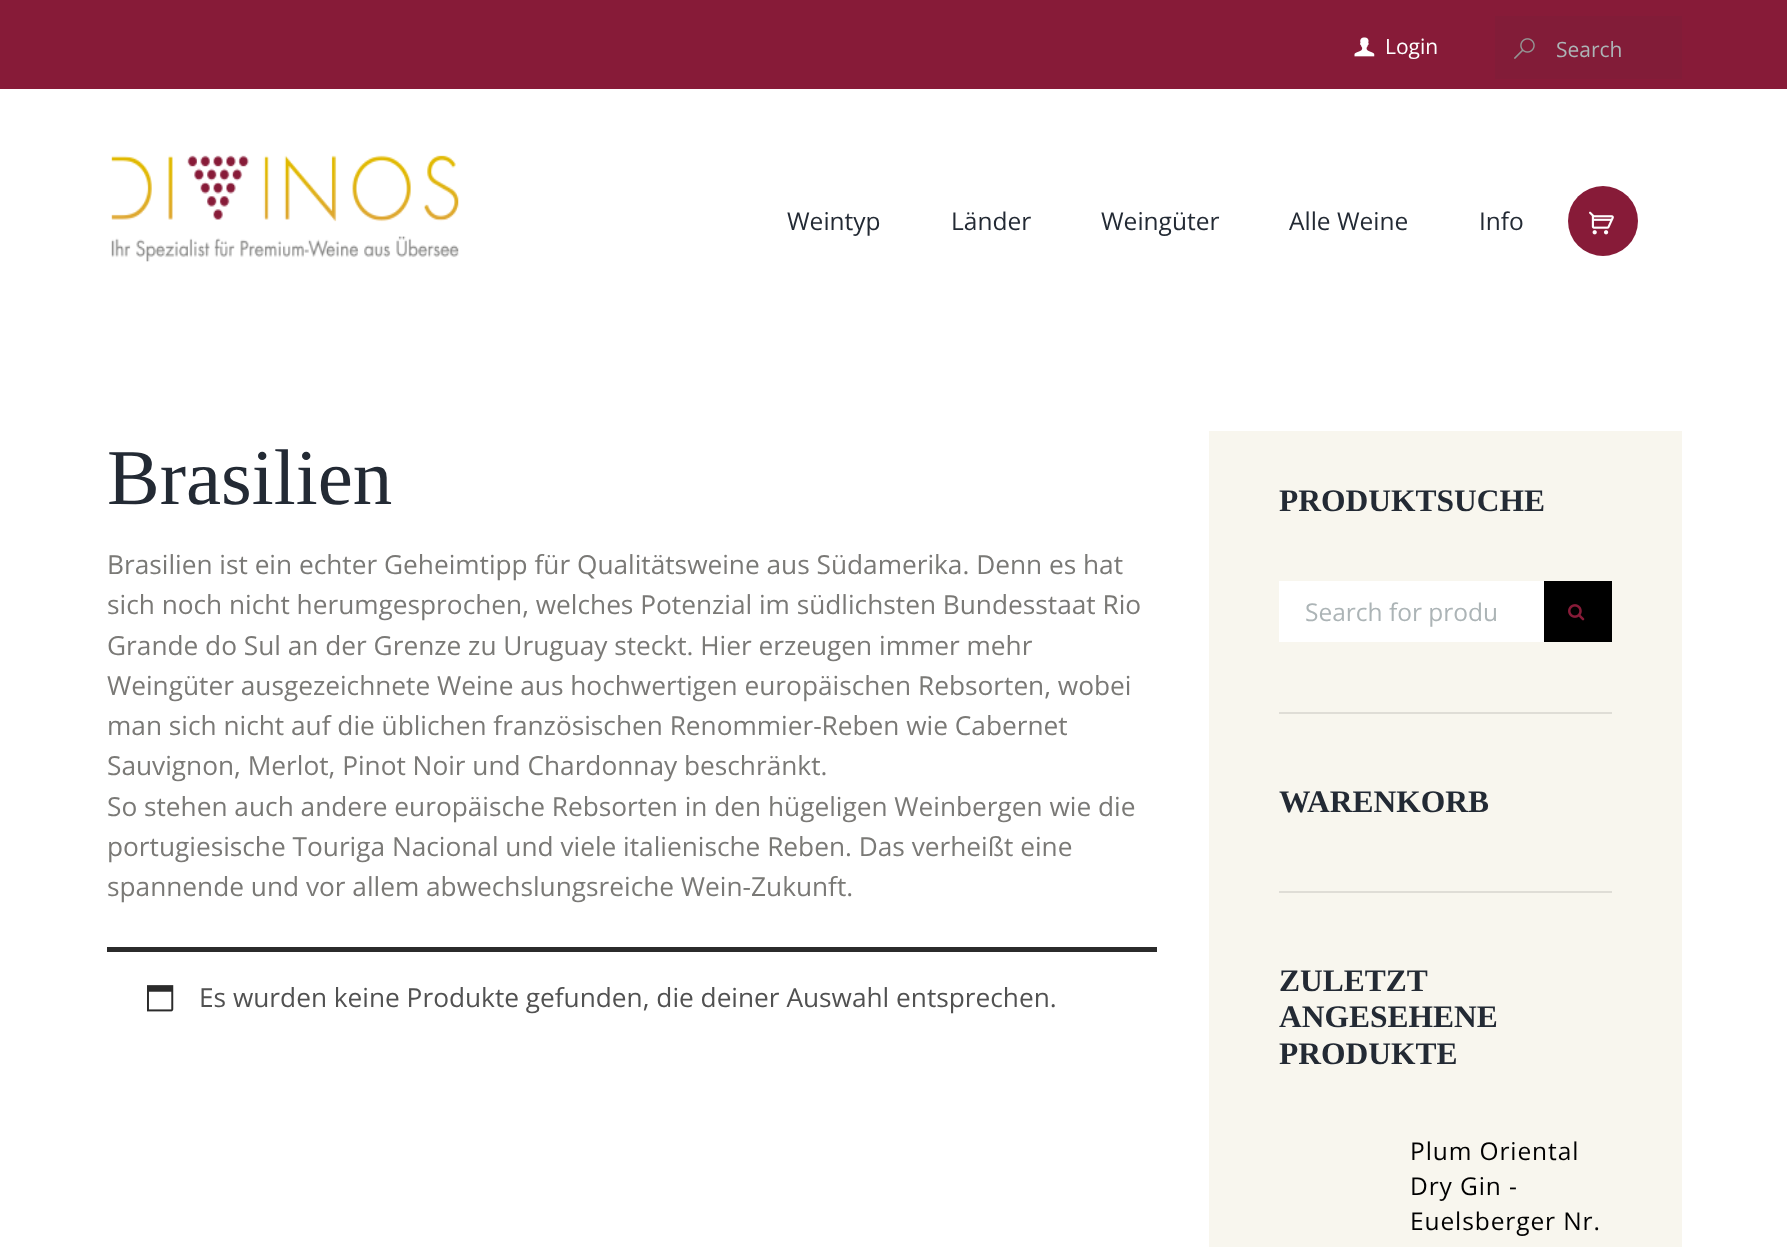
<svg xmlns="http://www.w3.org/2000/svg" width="1787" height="1247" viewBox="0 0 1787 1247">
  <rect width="100%" height="100%" fill="rgb(255,255,255)"/>
  <rect x="0" y="0" width="1787" height="89" fill="rgb(135,27,56)"/>
  <image x="1354" y="37" width="21" height="20" href="pic1.png"/>
  <text x="1385" y="54" font-family="Open Sans" font-size="21" fill="rgb(255,255,255)">Login</text>
  <rect x="1495" y="16" width="187" height="63" fill="rgb(130,28,56)"/>
  <image x="1514" y="38" width="21" height="21" href="pic2.png"/>
  <text x="1556" y="57" font-family="Open Sans" font-size="21" fill="rgb(172,180,182)">Search</text>
  <image x="111" y="155" width="348" height="107" href="pic3.png"/>
  <g font-family="Open Sans" font-size="24.5" fill="rgb(35,42,52)">
    <text x="787" y="230">Weintyp</text>
    <text x="951" y="230">Länder</text>
    <text x="1101" y="230">Weingüter</text>
    <text x="1289" y="230">Alle Weine</text>
    <text x="1479" y="230">Info</text>
  </g>
  <circle cx="1603" cy="221" r="35" fill="rgb(135,27,56)"/>
  <image x="1589" y="211" width="25" height="24" href="pic4.png"/>
  <text x="107" y="504" font-family="Liberation Serif" font-size="79" fill="rgb(35,42,52)">Brasilien</text>
  <g font-family="Open Sans" font-size="26.25" fill="rgb(122,121,118)">
    <text>
      <tspan x="107" y="574">Brasilien ist ein echter Geheimtipp für Qualitätsweine aus Südamerika. Denn es hat</tspan>
      <tspan x="107" y="614">sich noch nicht herumgesprochen, welches Potenzial im südlichsten Bundesstaat Rio</tspan>
      <tspan x="107" y="655">Grande do Sul an der Grenze zu Uruguay steckt. Hier erzeugen immer mehr</tspan>
      <tspan x="107" y="695">Weingüter ausgezeichnete Weine aus hochwertigen europäischen Rebsorten, wobei</tspan>
      <tspan x="107" y="735">man sich nicht auf die üblichen französischen Renommier-Reben wie Cabernet</tspan>
      <tspan x="107" y="775">Sauvignon, Merlot, Pinot Noir und Chardonnay beschränkt.</tspan>
      <tspan x="107" y="816">So stehen auch andere europäische Rebsorten in den hügeligen Weinbergen wie die</tspan>
      <tspan x="107" y="856">portugiesische Touriga Nacional und viele italienische Reben. Das verheißt eine</tspan>
      <tspan x="107" y="896">spannende und vor allem abwechslungsreiche Wein-Zukunft.</tspan>
    </text>
  </g>
  <rect x="107" y="947" width="1050" height="5" fill="rgb(43,43,43)"/>
  <image x="147" y="985" width="27" height="27" href="pic5.png"/>
  <text x="199" y="1007" font-family="Open Sans" font-size="26.25" fill="rgb(81,81,81)">Es wurden keine Produkte gefunden, die deiner Auswahl entsprechen.</text>
  <rect x="1209" y="431" width="473" height="816" fill="rgb(248,246,238)"/>
  <text x="1279" y="511" font-family="Liberation Serif" font-size="31.5" font-weight="bold" fill="rgb(35,42,52)">PRODUKTSUCHE</text>
  <rect x="1279" y="581" width="265" height="61" fill="rgb(255,255,255)"/>
  <text x="1305" y="621" font-family="Open Sans" font-size="24.5" fill="rgb(172,180,182)">Search for produ</text>
  <rect x="1544" y="581" width="68" height="61" fill="rgb(0,0,0)"/>
  <image x="1568" y="604" width="17" height="17" href="pic6.png"/>
  <rect x="1279" y="712" width="333" height="2" fill="rgb(223,221,214)"/>
  <text x="1279" y="812" font-family="Liberation Serif" font-size="31.5" font-weight="bold" fill="rgb(35,42,52)">WARENKORB</text>
  <rect x="1279" y="891" width="333" height="2" fill="rgb(223,221,214)"/>
  <g font-family="Liberation Serif" font-size="31.5" font-weight="bold" fill="rgb(35,42,52)">
    <text>
      <tspan x="1279" y="991">ZULETZT</tspan>
      <tspan x="1279" y="1027">ANGESEHENE</tspan>
      <tspan x="1279" y="1064">PRODUKTE</tspan>
    </text>
  </g>
  <g font-family="Open Sans" font-size="24.5" letter-spacing="0.9" fill="rgb(0,0,0)">
    <text>
      <tspan x="1410" y="1160">Plum Oriental</tspan>
      <tspan x="1410" y="1195">Dry Gin -</tspan>
      <tspan x="1410" y="1230">Euelsberger Nr.</tspan>
    </text>
  </g>
</svg>
